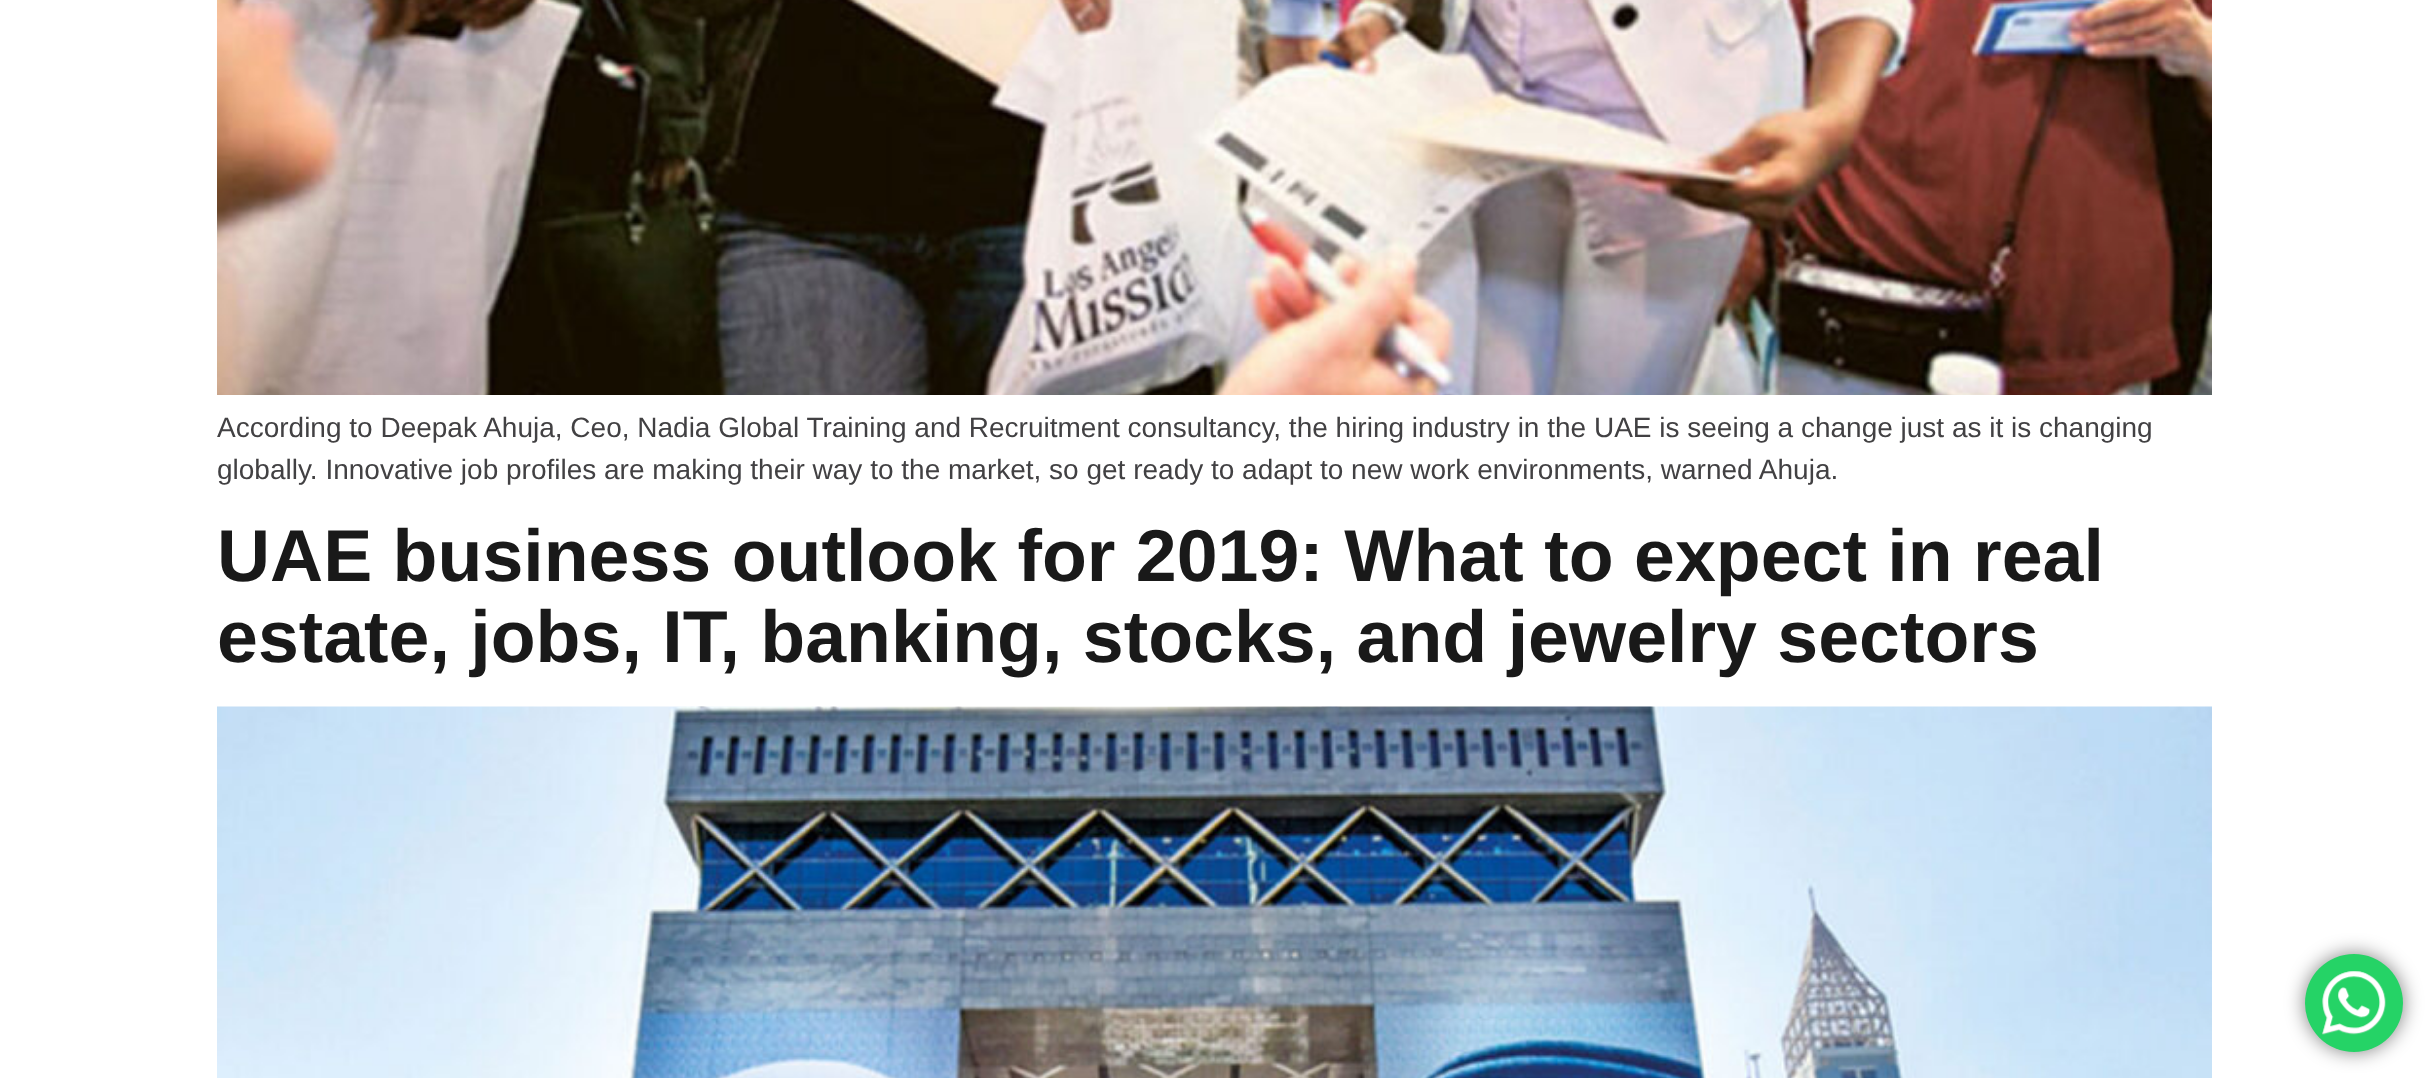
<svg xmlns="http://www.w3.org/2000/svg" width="2428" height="1078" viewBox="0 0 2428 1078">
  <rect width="100%" height="100%" fill="rgb(255,255,255)"/>
  <image x="217" y="0" width="1995" height="395" href="pic1.png"/>
  <g font-family="Liberation Sans" font-size="28" fill="rgb(66,65,67)">
    <text>
      <tspan x="217" y="437">According to Deepak Ahuja, Ceo, Nadia Global Training and Recruitment consultancy, the hiring industry in the UAE is seeing a change just as it is changing</tspan>
      <tspan x="217" y="479">globally. Innovative job profiles are making their way to the market, so get ready to adapt to new work environments, warned Ahuja.</tspan>
    </text>
  </g>
  <g font-family="Liberation Sans" font-size="73.5" font-weight="bold" fill="rgb(25,25,25)">
    <text>
      <tspan x="217" y="581">UAE business outlook for 2019: What to expect in real</tspan>
      <tspan x="217" y="662">estate, jobs, IT, banking, stocks, and jewelry sectors</tspan>
    </text>
  </g>
  <image x="217" y="706" width="1995" height="372" href="pic2.png"/>
  <rect x="2305" y="954" width="98" height="98" rx="49" fill="rgba(0,0,0,0.5)" filter="blur(9.5px)"/>
  <circle cx="2354" cy="1003" r="49" fill="rgb(37,211,102)"/>
  <image x="2322" y="971" width="64" height="64" href="pic3.png"/>
</svg>
